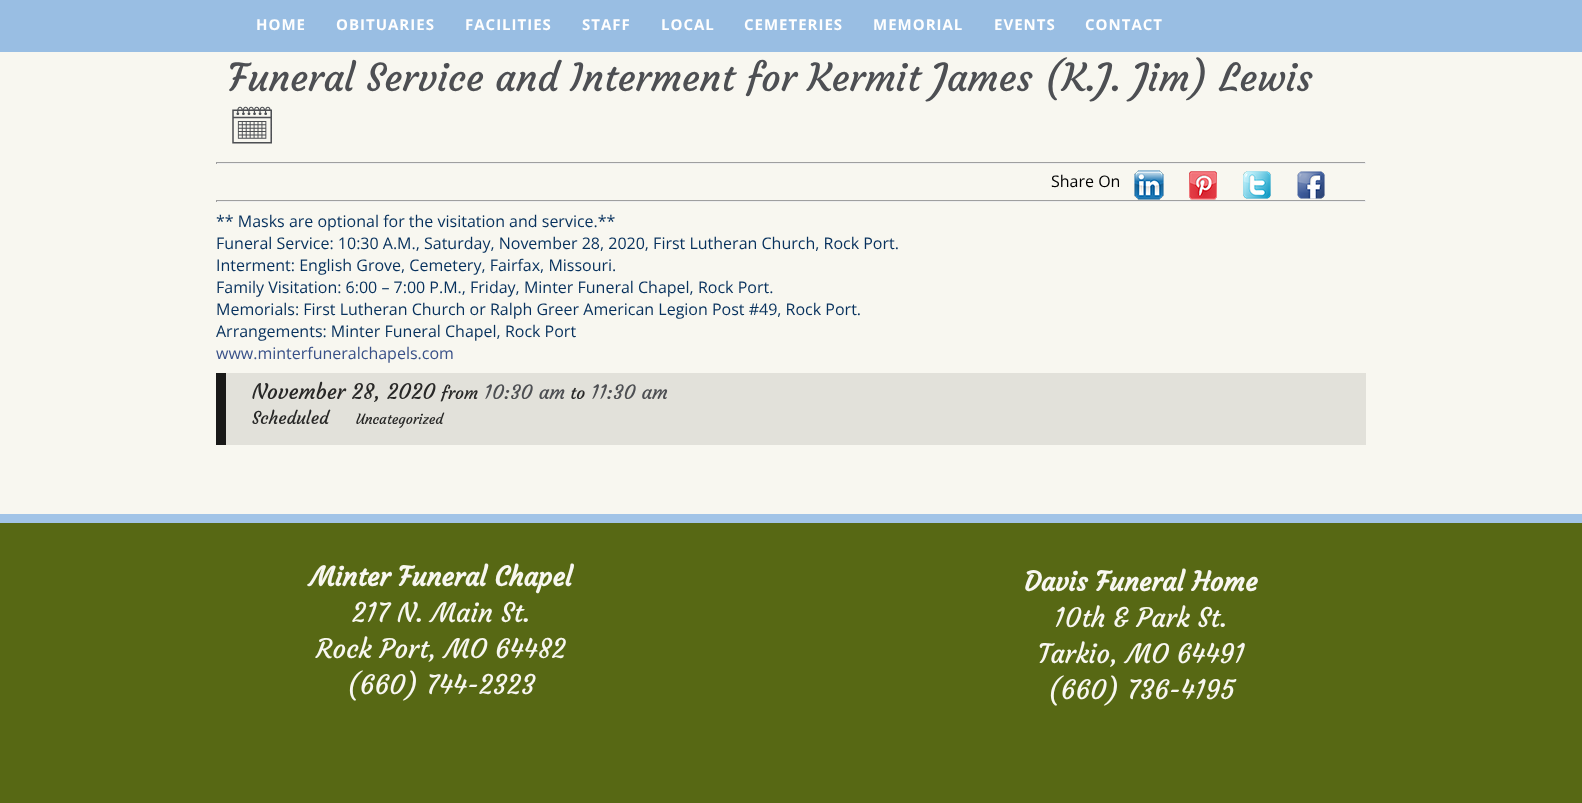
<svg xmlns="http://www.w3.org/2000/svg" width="1582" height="803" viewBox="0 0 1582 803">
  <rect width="100%" height="100%" fill="rgb(248,247,240)"/>
  <rect x="0" y="0" width="1582" height="52" fill="rgb(153,190,227)"/>
  <g font-family="Open Sans" font-size="15" font-weight="bold" letter-spacing="1" fill="rgb(254,254,254)">
    <text x="256" y="30">HOME</text>
    <text x="336" y="30">OBITUARIES</text>
    <text x="465" y="30">FACILITIES</text>
    <text x="582" y="30">STAFF</text>
    <text x="661" y="30">LOCAL</text>
    <text x="744" y="30">CEMETERIES</text>
    <text x="873" y="30">MEMORIAL</text>
    <text x="994" y="30">EVENTS</text>
    <text x="1085" y="30">CONTACT</text>
  </g>
  <text x="228" y="91" font-family="Courgette" font-size="38" fill="rgb(77,79,83)">Funeral Service and Interment for Kermit James (K.J. Jim) Lewis</text>
  <text x="228" y="139" font-family="Noto Emoji" font-size="38" fill="rgb(77,79,83)">🗓</text>
  <rect x="216" y="162" width="1150" height="1" fill="rgb(159,159,159)"/>
  <rect x="1365" y="162" width="1" height="2" fill="rgb(238,238,238)"/>
  <rect x="216" y="163" width="1150" height="1" fill="rgb(238,238,238)"/>
  <rect x="216" y="162" width="1" height="2" fill="rgb(159,159,159)"/>
  <text x="1051" y="187" font-family="Open Sans" font-size="16" fill="rgb(0,0,0)">Share On</text>
  <image x="1134" y="170" width="30" height="30" href="pic1.png"/>
  <image x="1189" y="171" width="28" height="29" href="pic2.png"/>
  <image x="1243" y="171" width="28" height="28" href="pic3.png"/>
  <image x="1297" y="171" width="28" height="28" href="pic4.png"/>
  <rect x="216" y="200" width="1150" height="1" fill="rgb(159,159,159)"/>
  <rect x="1365" y="200" width="1" height="2" fill="rgb(238,238,238)"/>
  <rect x="216" y="201" width="1150" height="1" fill="rgb(238,238,238)"/>
  <rect x="216" y="200" width="1" height="2" fill="rgb(159,159,159)"/>
  <g font-family="Open Sans" font-size="16" fill="rgb(7,49,93)">
    <text>
      <tspan x="216" y="227">** Masks are optional for the visitation and service.**</tspan>
      <tspan x="216" y="249">Funeral Service: 10:30 A.M., Saturday, November 28, 2020, First Lutheran Church, Rock Port.</tspan>
      <tspan x="216" y="271">Interment: English Grove, Cemetery, Fairfax, Missouri.</tspan>
      <tspan x="216" y="293">Family Visitation: 6:00 – 7:00 P.M., Friday, Minter Funeral Chapel, Rock Port.</tspan>
      <tspan x="216" y="315">Memorials: First Lutheran Church or Ralph Greer American Legion Post #49, Rock Port.</tspan>
      <tspan x="216" y="337">Arrangements: Minter Funeral Chapel, Rock Port</tspan>
    </text>
  </g>
  <text x="216" y="359" font-family="Open Sans" font-size="16" fill="rgb(56,80,136)">www.minterfuneralchapels.com</text>
  <rect x="226" y="373" width="1140" height="72" fill="rgb(226,225,218)"/>
  <rect x="216" y="373" width="10" height="72" fill="rgb(25,25,24)"/>
  <text x="252" y="399" font-family="Courgette" font-size="21.1" fill="rgb(40,40,39)">November 28, 2020</text>
  <text x="441" y="399" font-family="Courgette" font-size="17.5" fill="rgb(40,40,39)">from</text>
  <text x="484" y="399" font-family="Courgette" font-size="19.5" fill="rgb(77,79,83)">10:30 am</text>
  <text x="570" y="399" font-family="Courgette" font-size="17.5" fill="rgb(40,40,39)">to</text>
  <text x="591" y="399" font-family="Courgette" font-size="19.5" fill="rgb(77,79,83)">11:30 am</text>
  <text x="252" y="424" font-family="Courgette" font-size="17.5" fill="rgb(40,40,39)">Scheduled</text>
  <text x="356" y="424" font-family="Courgette" font-size="14" fill="rgb(40,40,39)">Uncategorized</text>
  <rect x="0" y="523" width="1582" height="280" fill="rgb(87,104,20)"/>
  <rect x="0" y="514" width="1582" height="9" fill="rgb(162,196,231)"/>
  <text x="310" y="586" font-family="Courgette" font-size="26.5" font-weight="bold" fill="rgb(248,247,240)">Minter Funeral Chapel</text>
  <g font-family="Courgette" font-size="26.5" fill="rgb(248,247,240)">
    <text x="352" y="622">217 N. Main St.</text>
    <text x="316" y="658">Rock Port, MO 64482</text>
    <text x="347" y="694">(660) 744-2323</text>
  </g>
  <text x="1024" y="591" font-family="Courgette" font-size="26.5" font-weight="bold" fill="rgb(248,247,240)">Davis Funeral Home</text>
  <g font-family="Courgette" font-size="26.5" fill="rgb(248,247,240)">
    <text x="1054" y="627">10th &amp; Park St.</text>
    <text x="1038" y="663">Tarkio, MO 64491</text>
    <text x="1048" y="699">(660) 736-4195</text>
  </g>
</svg>
